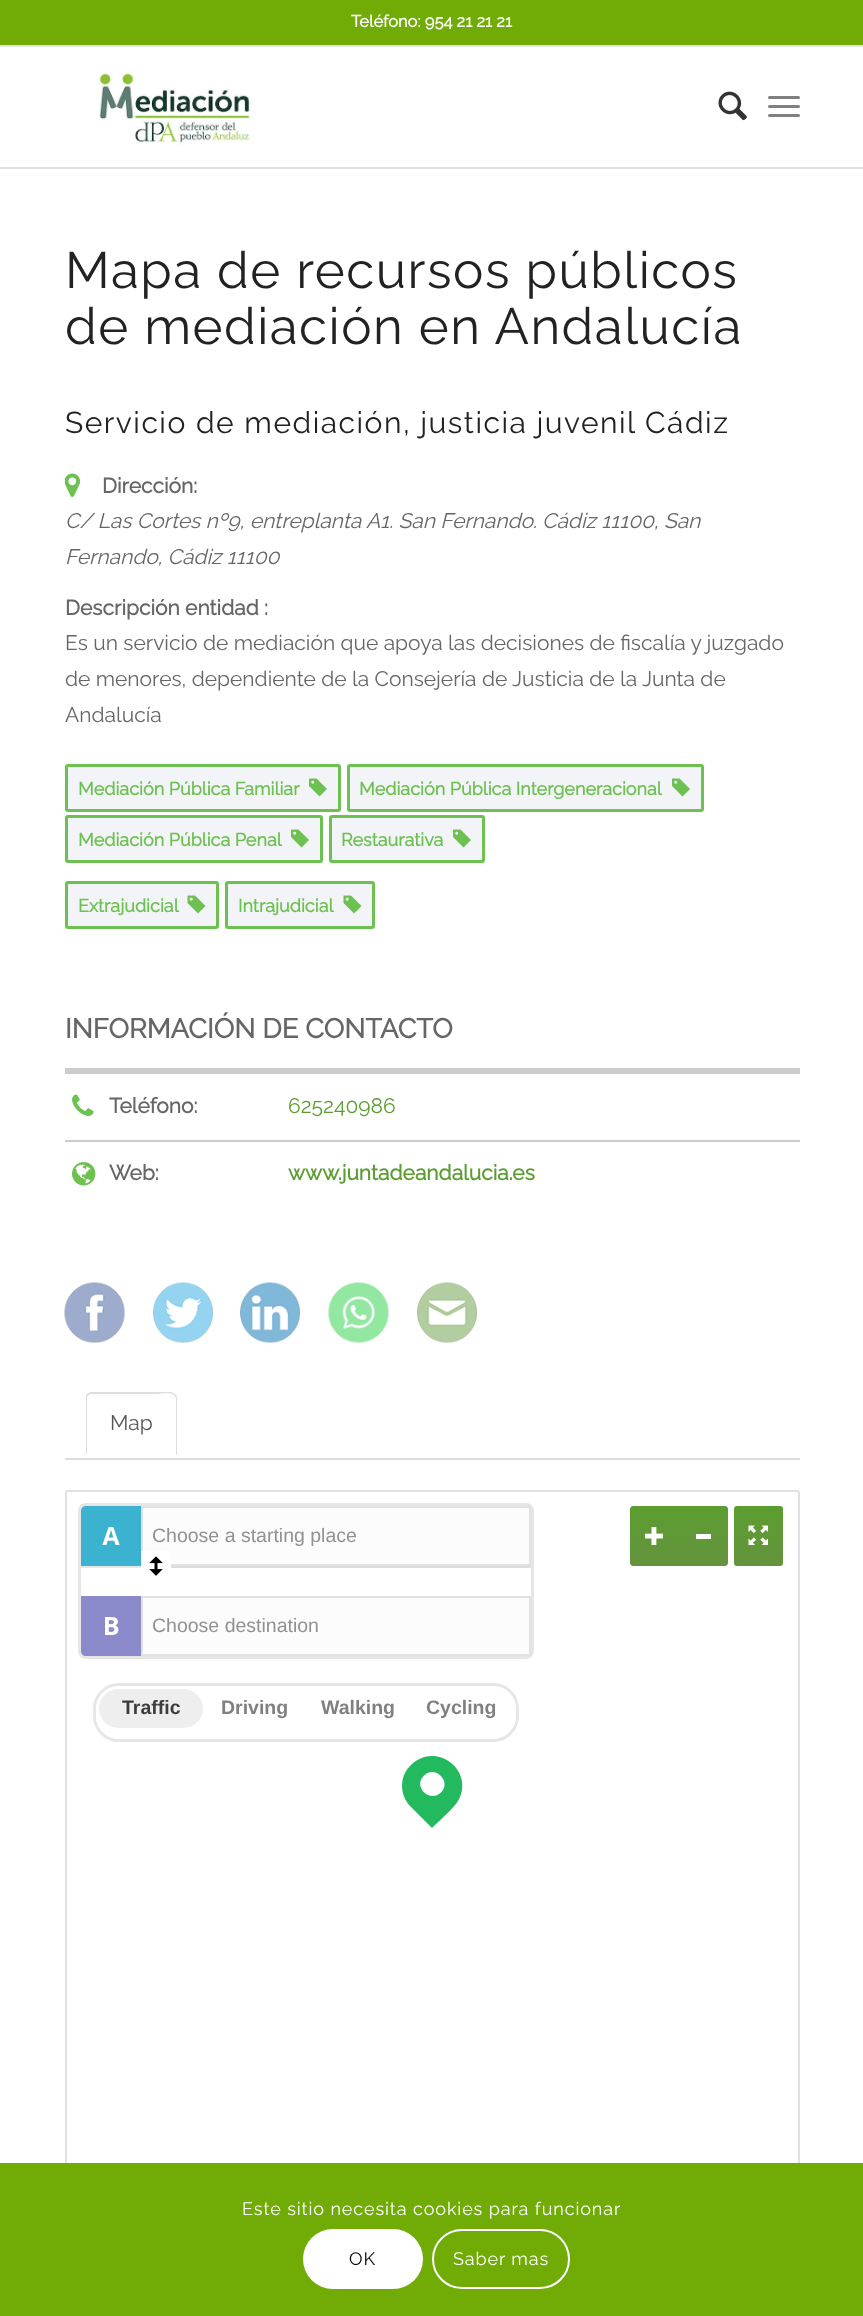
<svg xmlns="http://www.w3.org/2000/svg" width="863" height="2316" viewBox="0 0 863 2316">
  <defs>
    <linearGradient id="g1" gradientUnits="userSpaceOnUse" x1="655" y1="1506" x2="655" y2="1566"><stop offset="0" stop-color="rgb(91,157,48)"/><stop offset="1" stop-color="rgb(100,147,61)"/></linearGradient>
    <linearGradient id="g2" gradientUnits="userSpaceOnUse" x1="703" y1="1506" x2="703" y2="1566"><stop offset="0" stop-color="rgb(91,157,48)"/><stop offset="1" stop-color="rgb(100,147,61)"/></linearGradient>
    <linearGradient id="g3" gradientUnits="userSpaceOnUse" x1="758" y1="1506" x2="758" y2="1566"><stop offset="0" stop-color="rgb(91,157,48)"/><stop offset="1" stop-color="rgb(100,147,61)"/></linearGradient>
  </defs>
  <rect width="100%" height="100%" fill="rgb(255,255,255)"/>
  <rect x="0" y="0" width="863" height="45" fill="rgb(113,171,5)"/>
  <rect x="0" y="45" width="863" height="2" fill="rgb(225,225,225)"/>
  <text x="351" y="27" font-family="Raleway" font-size="16.5" font-weight="bold" fill="rgb(255,255,255)">Teléfono: 954 21 21 21</text>
  <rect x="0" y="167" width="863" height="2" fill="rgb(225,225,225)"/>
  <image x="65" y="47" width="212" height="98" href="pic1.png"/>
  <image x="718" y="91" width="29" height="30" href="pic2.png"/>
  <rect x="768" y="105" width="32" height="3" rx="1.5" fill="rgb(128,128,128)"/>
  <rect x="768" y="96" width="32" height="3" rx="1.5" fill="rgb(128,128,128)"/>
  <rect x="768" y="114" width="32" height="3" rx="1.5" fill="rgb(128,128,128)"/>
  <g font-family="Raleway" font-size="51" font-weight="100" letter-spacing="1.5" fill="rgb(34,34,34)">
    <text>
      <tspan x="65" y="288">Mapa de recursos públicos</tspan>
      <tspan x="65" y="344">de mediación en Andalucía</tspan>
    </text>
  </g>
  <text x="65" y="433" font-family="Raleway" font-size="30" font-weight="100" letter-spacing="1.5" fill="rgb(34,34,34)">Servicio de mediación, justicia juvenil Cádiz</text>
  <image x="65" y="473" width="16" height="24" href="pic3.png"/>
  <text x="102" y="493" font-family="Raleway" font-size="21" font-weight="bold" fill="rgb(102,102,102)">Dirección:</text>
  <g font-family="Raleway" font-size="21" font-weight="100" font-style="italic" fill="rgb(102,102,102)">
    <text>
      <tspan x="65" y="528">C/ Las Cortes nº9, entreplanta A1. San Fernando. Cádiz 11100, San</tspan>
      <tspan x="65" y="564">Fernando, Cádiz 11100</tspan>
    </text>
  </g>
  <text x="65" y="615" font-family="Raleway" font-size="21" font-weight="bold" fill="rgb(102,102,102)">Descripción entidad :</text>
  <g font-family="Raleway" font-size="21" font-weight="100" fill="rgb(102,102,102)">
    <text>
      <tspan x="65" y="650">Es un servicio de mediación que apoya las decisiones de fiscalía y juzgado</tspan>
      <tspan x="65" y="686">de menores, dependiente de la Consejería de Justicia de la Junta de</tspan>
      <tspan x="65" y="722">Andalucía</tspan>
    </text>
  </g>
  <rect x="66.5" y="765.5" width="273" height="45" rx="1.5" fill="rgb(243,244,247)" stroke="rgb(108,193,80)" stroke-width="3"/>
  <text x="78" y="795" font-family="Raleway" font-size="18" font-weight="bold" fill="rgb(108,193,80)">Mediación Pública Familiar</text>
  <image x="309" y="778" width="18" height="19" href="pic4.png"/>
  <rect x="348.5" y="765.5" width="354" height="45" rx="1.5" fill="rgb(243,244,247)" stroke="rgb(108,193,80)" stroke-width="3"/>
  <text x="359" y="795" font-family="Raleway" font-size="18" font-weight="bold" fill="rgb(108,193,80)">Mediación Pública Intergeneracional</text>
  <image x="672" y="778" width="18" height="19" href="pic4.png"/>
  <rect x="66.5" y="816.5" width="255" height="45" rx="1.5" fill="rgb(243,244,247)" stroke="rgb(108,193,80)" stroke-width="3"/>
  <text x="78" y="846" font-family="Raleway" font-size="18" font-weight="bold" fill="rgb(108,193,80)">Mediación Pública Penal</text>
  <image x="291" y="829" width="18" height="19" href="pic4.png"/>
  <rect x="330.5" y="816.5" width="153" height="45" rx="1.5" fill="rgb(243,244,247)" stroke="rgb(108,193,80)" stroke-width="3"/>
  <text x="341" y="846" font-family="Raleway" font-size="18" font-weight="bold" fill="rgb(108,193,80)">Restaurativa</text>
  <image x="453" y="829" width="18" height="19" href="pic4.png"/>
  <rect x="66.5" y="882.5" width="151" height="45" rx="1.5" fill="rgb(243,244,247)" stroke="rgb(108,193,80)" stroke-width="3"/>
  <text x="78" y="912" font-family="Raleway" font-size="18" font-weight="bold" fill="rgb(108,193,80)">Extrajudicial</text>
  <image x="187" y="895" width="19" height="19" href="pic5.png"/>
  <rect x="226.5" y="882.5" width="147" height="45" rx="1.5" fill="rgb(243,244,247)" stroke="rgb(108,193,80)" stroke-width="3"/>
  <text x="238" y="912" font-family="Raleway" font-size="18" font-weight="bold" fill="rgb(108,193,80)">Intrajudicial</text>
  <image x="343" y="895" width="19" height="19" href="pic5.png"/>
  <rect x="65" y="1068" width="735" height="6" fill="rgb(204,204,204)"/>
  <text x="65" y="1038" font-family="Raleway" font-size="27.25" font-weight="bold" fill="rgb(102,102,102)">INFORMACIÓN DE CONTACTO</text>
  <rect x="65" y="1140" width="735" height="2" fill="rgb(204,204,204)"/>
  <image x="72" y="1094" width="22" height="22" href="pic6.png"/>
  <text x="109" y="1113" font-family="Raleway" font-size="21" font-weight="bold" fill="rgb(102,102,102)">Teléfono:</text>
  <text x="288" y="1113" font-family="Raleway" font-size="21" font-weight="100" fill="rgb(91,157,48)">625240986</text>
  <image x="72" y="1162" width="24" height="24" href="pic7.png"/>
  <text x="109" y="1180" font-family="Raleway" font-size="21" font-weight="bold" fill="rgb(102,102,102)">Web:</text>
  <text x="288" y="1180" font-family="Raleway" font-size="21" font-weight="bold" fill="rgb(91,157,48)">www.juntadeandalucia.es</text>
  <image x="64" y="1282" width="61" height="61" href="pic8.png"/>
  <image x="153" y="1282" width="60" height="61" href="pic9.png"/>
  <image x="240" y="1282" width="60" height="61" href="pic10.png"/>
  <image x="328" y="1282" width="61" height="61" href="pic11.png"/>
  <image x="417" y="1282" width="60" height="61" href="pic12.png"/>
  <rect x="65" y="1458" width="735" height="2" fill="rgb(221,221,221)"/>
  <path d="M92 1392C90 1392 88 1393 87 1394L89 1395L91 1394H158C160 1394 170 1392 174 1395L175 1394C174 1393 172 1392 171 1392Z" fill="rgb(221,221,221)"/>
  <path d="M177 1455V1398C177 1396 176 1395 175 1394L174 1395L176 1398V1454Z" fill="rgb(221,221,221)"/>
  <path d="M87 1394C86 1395 86 1397 86 1398V1454H87V1397L89 1395Z" fill="rgb(221,221,221)"/>
  <text x="110" y="1430" font-family="Raleway" font-size="21" font-weight="100" fill="rgb(85,85,85)">Map</text>
  <rect x="66" y="1491" width="733" height="676" rx="2" fill="none" stroke="rgb(225,225,225)" stroke-width="2"/>
  <rect x="79.5" y="1504.5" width="453" height="153" rx="6.5" fill="none" stroke="rgb(230,230,230)" stroke-width="3"/>
  <rect x="81" y="1566" width="60" height="2" fill="rgb(230,230,230)"/>
  <path d="M86 1506H141V1566H81V1511C81 1508 83 1506 86 1506Z" fill="rgb(59,178,208)"/>
  <image x="102" y="1527" width="18" height="18" href="pic13.png"/>
  <rect x="171" y="1566" width="360" height="2" fill="rgb(221,221,221)"/>
  <rect x="142" y="1507" width="388" height="58" fill="rgb(252,252,252)" stroke="rgb(225,225,225)" stroke-width="2"/>
  <text x="152" y="1542" font-family="Liberation Sans" font-size="19.5" fill="rgb(145,145,145)">Choose a starting place</text>
  <rect x="141" y="1551" width="30" height="15" fill="rgb(255,255,255)"/>
  <image x="149" y="1556" width="14" height="20" href="pic14.png"/>
  <path d="M81 1596H141V1656H86C83 1656 81 1654 81 1651Z" fill="rgb(138,138,203)"/>
  <image x="105" y="1617" width="14" height="18" href="pic15.png"/>
  <rect x="142" y="1597" width="388" height="58" fill="rgb(252,252,252)" stroke="rgb(225,225,225)" stroke-width="2"/>
  <text x="152" y="1632" font-family="Liberation Sans" font-size="19.5" fill="rgb(145,145,145)">Choose destination</text>
  <rect x="94.5" y="1684.5" width="423" height="56" rx="24.5" fill="none" stroke="rgb(230,230,230)" stroke-width="3"/>
  <rect x="96" y="1686" width="420" height="53" rx="23" fill="rgb(255,255,255)"/>
  <rect x="99" y="1689" width="104" height="39" rx="19.5" fill="rgb(238,238,238)"/>
  <text x="122" y="1714" font-family="Liberation Sans" font-size="19.5" font-weight="bold" fill="rgb(60,60,60)">Traffic</text>
  <g font-family="Liberation Sans" font-size="19.5" font-weight="bold" fill="rgb(128,128,128)">
    <text x="221" y="1714">Driving</text>
    <text x="321" y="1714">Walking</text>
    <text x="426" y="1714">Cycling</text>
  </g>
  <path d="M633 1506H680V1566H633C631.5 1566 630 1564.5 630 1563V1509C630 1507.5 631.5 1506 633 1506Z" fill="url(#g1)"/>
  <image x="645" y="1527" width="18" height="18" href="pic16.png"/>
  <path d="M678 1506H725C726.5 1506 728 1507.5 728 1509V1563C728 1564.5 726.5 1566 725 1566H678Z" fill="url(#g2)"/>
  <rect x="696" y="1534" width="15" height="5" fill="rgb(255,255,255)"/>
  <rect x="734" y="1506" width="49" height="60" rx="3" fill="url(#g3)"/>
  <image x="748" y="1525" width="20" height="20" href="pic17.png"/>
  <path d="M411 1765C434 1742 472 1767 460 1797C456 1807 440 1820 432 1828L411 1807C399 1795 399 1776 411 1765Z" fill="rgb(35,186,95)"/>
  <path d="M424 1775.5C435 1764.5 452 1781.5 441 1792.5C429.5 1803.5 412.5 1786.5 424 1775.5Z" fill="rgb(255,255,255)"/>
  <rect x="0" y="2163" width="863" height="153" fill="rgb(113,171,5)"/>
  <text x="242" y="2215" font-family="Raleway" font-size="18" font-weight="100" letter-spacing="0.9" fill="rgb(255,255,255)">Este sitio necesita cookies para funcionar</text>
  <rect x="303" y="2229" width="120" height="60" rx="30" fill="rgb(255,255,255)"/>
  <text x="349" y="2265" font-family="Raleway" font-size="18" font-weight="100" letter-spacing="0.9" fill="rgb(0,0,0)">OK</text>
  <rect x="433" y="2230" width="136" height="58" rx="29" fill="none" stroke="rgb(255,255,255)" stroke-width="2"/>
  <text x="453" y="2265" font-family="Raleway" font-size="18" font-weight="100" letter-spacing="0.9" fill="rgb(255,255,255)">Saber mas</text>
</svg>
